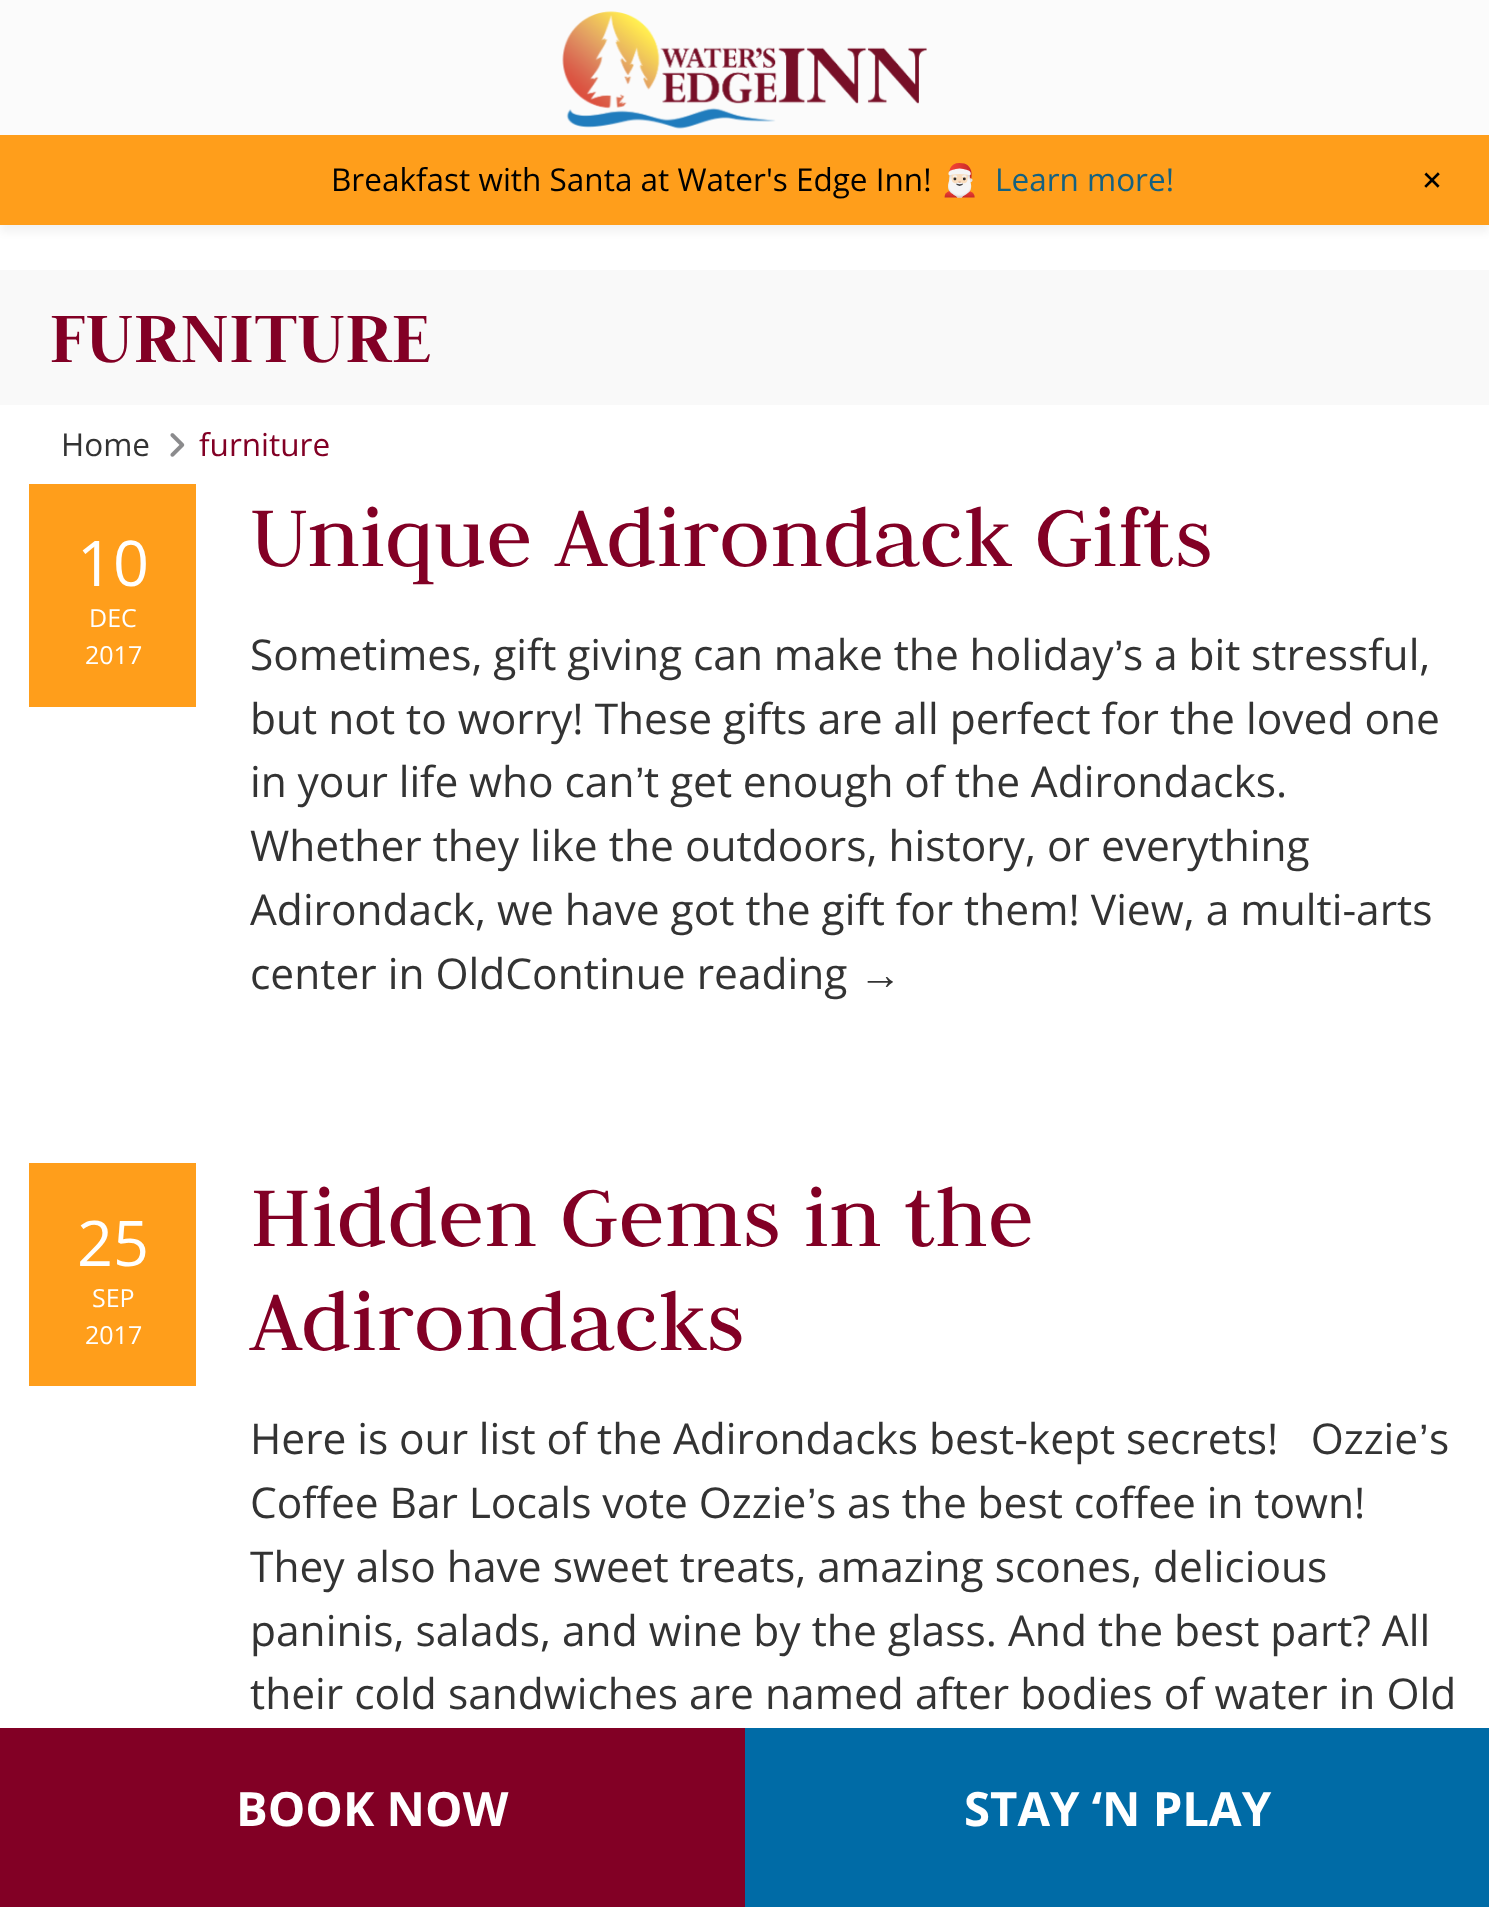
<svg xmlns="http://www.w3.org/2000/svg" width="1489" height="1907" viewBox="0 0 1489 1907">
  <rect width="100%" height="100%" fill="rgb(255,255,255)"/>
  <rect x="0" y="142" width="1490" height="90" fill="rgba(0,0,0,0.05)" filter="blur(4.5px)"/>
  <rect x="0" y="0" width="1489" height="135" fill="rgb(251,251,251)"/>
  <image x="562" y="11" width="365" height="118" href="pic1.png"/>
  <rect x="0" y="135" width="1489" height="90" fill="rgb(255,158,27)"/>
  <text x="331" y="191" font-family="Open Sans" font-size="31.5" fill="rgb(0,0,0)">Breakfast with Santa at Water's Edge Inn!</text>
  <text x="940" y="191" font-family="Noto Color Emoji" font-size="31.5" fill="rgb(0,0,0)">🎅🏻</text>
  <text x="995" y="191" font-family="Open Sans" font-size="31.5" fill="rgb(21,97,128)">Learn more!</text>
  <text x="1414" y="182" transform="rotate(45 1414 182)" font-family="Open Sans" font-size="40" fill="rgb(0,0,0)">+</text>
  <rect x="0" y="270" width="1489" height="135" fill="rgb(249,249,249)"/>
  <text x="49" y="362" font-family="Judson" font-size="78.75" font-weight="bold" fill="rgb(130,0,37)">FURNITURE</text>
  <text x="61" y="456" font-family="Open Sans" font-size="31.5" fill="rgb(51,51,51)">Home</text>
  <image x="170" y="433" width="15" height="24" href="pic2.png"/>
  <text x="199" y="456" font-family="Open Sans" font-size="31.5" fill="rgb(130,0,37)">furniture</text>
  <rect x="29" y="484" width="167" height="223" fill="rgb(255,158,27)"/>
  <text x="77" y="586" font-family="Open Sans" font-size="63" fill="rgb(255,255,255)">10</text>
  <g font-family="Open Sans" font-size="25" fill="rgb(255,255,255)">
    <text x="89" y="627">DEC</text>
    <text x="85" y="664">2017</text>
  </g>
  <text x="250" y="566" font-family="Judson" font-size="94.5" fill="rgb(130,0,37)">Unique Adirondack Gifts</text>
  <text x="250" y="670" word-spacing="-0.25" font-family="Open Sans" font-size="42.5" fill="rgb(51,51,51)">Sometimes, gift giving can make the holiday</text>
  <text x="1114" y="670" font-family="Liberation Sans" font-size="42.5" fill="rgb(51,51,51)">’</text>
  <g font-family="Open Sans" font-size="42.5" fill="rgb(51,51,51)">
    <text x="1123" y="670" word-spacing="-0.25">s a bit stressful,</text>
    <text>
      <tspan x="250" y="734">but not to worry! These gifts are all perfect for the loved one</tspan>
      <tspan x="250" y="797" word-spacing="-0.25">in your life who can</tspan>
    </text>
  </g>
  <text x="635" y="797" font-family="Liberation Sans" font-size="42.5" fill="rgb(51,51,51)">’</text>
  <g font-family="Open Sans" font-size="42.5" fill="rgb(51,51,51)">
    <text x="644" y="797" word-spacing="-0.25">t get enough of the Adirondacks.</text>
    <text>
      <tspan x="250" y="861">Whether they like the outdoors, history, or everything</tspan>
      <tspan x="250" y="925">Adirondack, we have got the gift for them! View, a multi-arts</tspan>
      <tspan x="250" y="989">center in OldContinue reading</tspan>
    </text>
  </g>
  <text x="859" y="989" font-family="Liberation Sans" font-size="42.5" fill="rgb(51,51,51)">→</text>
  <rect x="29" y="1163" width="167" height="223" fill="rgb(255,158,27)"/>
  <text x="77" y="1266" font-family="Open Sans" font-size="63" fill="rgb(255,255,255)">25</text>
  <g font-family="Open Sans" font-size="25" fill="rgb(255,255,255)">
    <text x="92" y="1307">SEP</text>
    <text x="85" y="1344">2017</text>
  </g>
  <g font-family="Judson" font-size="94.5" fill="rgb(130,0,37)">
    <text>
      <tspan x="250" y="1246">Hidden Gems in the</tspan>
      <tspan x="250" y="1350">Adirondacks</tspan>
    </text>
  </g>
  <text x="250" y="1454" word-spacing="-0.25" font-family="Open Sans" font-size="42.5" fill="rgb(51,51,51)" xml:space="preserve">Here is our list of the Adirondacks best-kept secrets!   Ozzie</text>
  <text x="1419" y="1454" font-family="Liberation Sans" font-size="42.5" fill="rgb(51,51,51)">’</text>
  <g font-family="Open Sans" font-size="42.5" fill="rgb(51,51,51)">
    <text x="1429" y="1454">s</text>
    <text x="250" y="1518" word-spacing="-0.25">Coffee Bar Locals vote Ozzie</text>
  </g>
  <text x="807" y="1518" font-family="Liberation Sans" font-size="42.5" fill="rgb(51,51,51)">’</text>
  <g font-family="Open Sans" font-size="42.5" fill="rgb(51,51,51)">
    <text x="816" y="1518" word-spacing="-0.25">s as the best coffee in town!</text>
    <text>
      <tspan x="250" y="1582">They also have sweet treats, amazing scones, delicious</tspan>
      <tspan x="250" y="1646">paninis, salads, and wine by the glass. And the best part? All</tspan>
      <tspan x="250" y="1709">their cold sandwiches are named after bodies of water in Old</tspan>
    </text>
  </g>
  <rect x="0" y="1728" width="745" height="179" fill="rgb(130,0,37)"/>
  <text x="236" y="1826" font-family="Open Sans" font-size="47.25" font-weight="bold" fill="rgb(255,255,255)">BOOK NOW</text>
  <rect x="745" y="1728" width="744" height="179" fill="rgb(0,107,166)"/>
  <text x="964" y="1826" font-family="Open Sans" font-size="47.25" font-weight="bold" fill="rgb(255,255,255)">STAY ‘N PLAY</text>
</svg>
